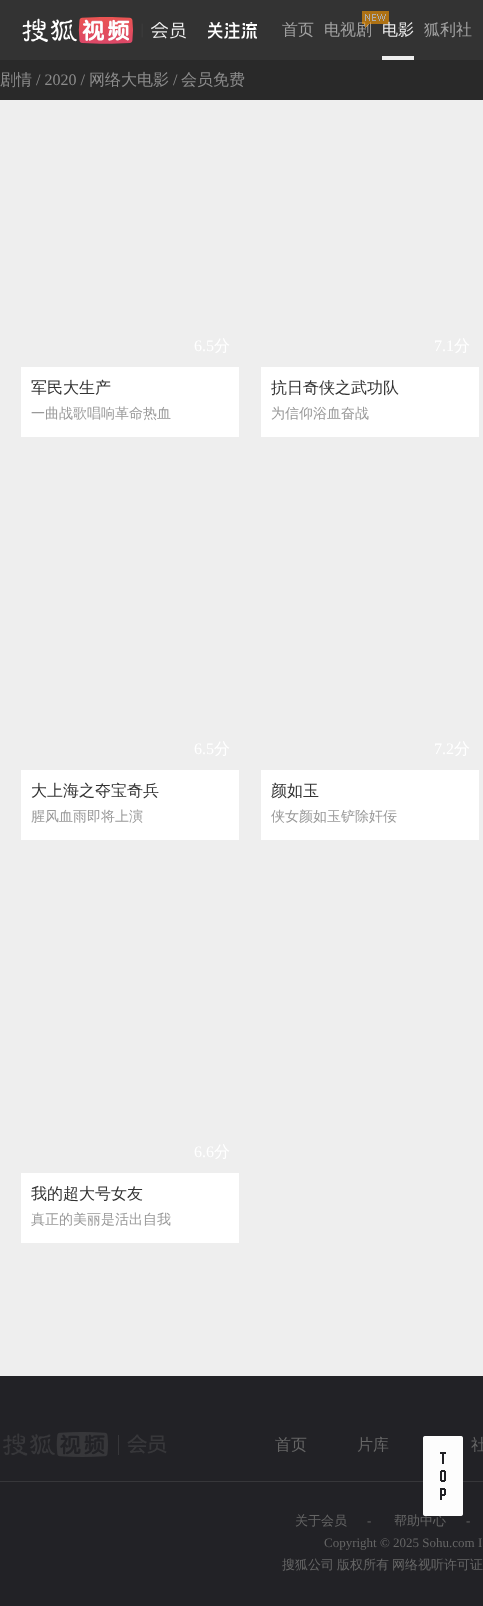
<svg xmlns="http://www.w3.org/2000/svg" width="483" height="1606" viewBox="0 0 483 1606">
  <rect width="100%" height="100%" fill="rgb(238,238,238)"/>
  <rect x="0" y="0" width="483" height="60" fill="rgb(51,51,51)"/>
  <image x="22" y="17" width="164" height="27" href="pic1.png"/>
  <image x="208" y="22" width="49" height="17" href="pic2.png"/>
  <g font-family="WenQuanYi Zen Hei" font-size="16" font-weight="500" fill="rgb(163,163,163)">
    <text x="282" y="35">首页</text>
    <text x="324" y="35">电视剧</text>
  </g>
  <image x="362" y="11" width="27" height="17" href="pic3.png"/>
  <rect x="382" y="56" width="32" height="4" fill="rgb(238,238,238)"/>
  <text x="382" y="35" font-family="WenQuanYi Zen Hei" font-size="16" font-weight="500" fill="rgb(238,238,238)">电影</text>
  <text x="424" y="35" font-family="WenQuanYi Zen Hei" font-size="16" font-weight="500" fill="rgb(163,163,163)">狐利社</text>
  <rect x="0" y="60" width="483" height="40" fill="rgb(41,41,41)"/>
  <text x="0" y="85" font-family="WenQuanYi Zen Hei" font-size="16" font-weight="500" fill="rgb(140,140,140)">剧情</text>
  <text x="36" y="85" font-family="Liberation Serif" font-size="16" fill="rgb(140,140,140)">/ 2020 /</text>
  <text x="89" y="85" font-family="WenQuanYi Zen Hei" font-size="16" font-weight="500" fill="rgb(140,140,140)">网络大电影</text>
  <text x="173" y="85" font-family="Liberation Serif" font-size="16" fill="rgb(140,140,140)">/</text>
  <text x="181" y="85" font-family="WenQuanYi Zen Hei" font-size="16" font-weight="500" fill="rgb(140,140,140)">会员免费</text>
  <text x="194" y="351" font-family="Liberation Serif" font-size="16" fill="rgb(255,255,255)">6.5</text>
  <text x="214" y="351" font-family="WenQuanYi Zen Hei" font-size="16" font-weight="500" fill="rgb(255,255,255)">分</text>
  <rect x="21" y="367" width="218" height="70" fill="rgb(255,255,255)"/>
  <text x="31" y="393" font-family="WenQuanYi Zen Hei" font-size="16" font-weight="500" fill="rgb(51,51,51)">军民大生产</text>
  <text x="31" y="418" font-family="WenQuanYi Zen Hei" font-size="14" font-weight="500" fill="rgb(153,153,153)">一曲战歌唱响革命热血</text>
  <text x="434" y="351" font-family="Liberation Serif" font-size="16" fill="rgb(255,255,255)">7.1</text>
  <text x="454" y="351" font-family="WenQuanYi Zen Hei" font-size="16" font-weight="500" fill="rgb(255,255,255)">分</text>
  <rect x="261" y="367" width="218" height="70" fill="rgb(255,255,255)"/>
  <text x="271" y="393" font-family="WenQuanYi Zen Hei" font-size="16" font-weight="500" fill="rgb(51,51,51)">抗日奇侠之武功队</text>
  <text x="271" y="418" font-family="WenQuanYi Zen Hei" font-size="14" font-weight="500" fill="rgb(153,153,153)">为信仰浴血奋战</text>
  <text x="194" y="754" font-family="Liberation Serif" font-size="16" fill="rgb(255,255,255)">6.5</text>
  <text x="214" y="754" font-family="WenQuanYi Zen Hei" font-size="16" font-weight="500" fill="rgb(255,255,255)">分</text>
  <rect x="21" y="770" width="218" height="70" fill="rgb(255,255,255)"/>
  <text x="31" y="796" font-family="WenQuanYi Zen Hei" font-size="16" font-weight="500" fill="rgb(51,51,51)">大上海之夺宝奇兵</text>
  <text x="31" y="821" font-family="WenQuanYi Zen Hei" font-size="14" font-weight="500" fill="rgb(153,153,153)">腥风血雨即将上演</text>
  <text x="434" y="754" font-family="Liberation Serif" font-size="16" fill="rgb(255,255,255)">7.2</text>
  <text x="454" y="754" font-family="WenQuanYi Zen Hei" font-size="16" font-weight="500" fill="rgb(255,255,255)">分</text>
  <rect x="261" y="770" width="218" height="70" fill="rgb(255,255,255)"/>
  <text x="271" y="796" font-family="WenQuanYi Zen Hei" font-size="16" font-weight="500" fill="rgb(51,51,51)">颜如玉</text>
  <text x="271" y="821" font-family="WenQuanYi Zen Hei" font-size="14" font-weight="500" fill="rgb(153,153,153)">侠女颜如玉铲除奸佞</text>
  <text x="194" y="1157" font-family="Liberation Serif" font-size="16" fill="rgb(255,255,255)">6.6</text>
  <text x="214" y="1157" font-family="WenQuanYi Zen Hei" font-size="16" font-weight="500" fill="rgb(255,255,255)">分</text>
  <rect x="21" y="1173" width="218" height="70" fill="rgb(255,255,255)"/>
  <text x="31" y="1199" font-family="WenQuanYi Zen Hei" font-size="16" font-weight="500" fill="rgb(51,51,51)">我的超大号女友</text>
  <text x="31" y="1224" font-family="WenQuanYi Zen Hei" font-size="14" font-weight="500" fill="rgb(153,153,153)">真正的美丽是活出自我</text>
  <rect x="0" y="1376" width="483" height="230" fill="rgb(34,34,38)"/>
  <image x="3" y="1432" width="164" height="25" href="pic4.png"/>
  <rect x="0" y="1481" width="483" height="1" fill="rgb(55,55,58)"/>
  <g font-family="WenQuanYi Zen Hei" font-size="16" font-weight="500" fill="rgb(102,102,102)">
    <text x="275" y="1450">首页</text>
    <text x="357" y="1450">片库</text>
    <text x="471" y="1450">社</text>
  </g>
  <text x="295" y="1525" font-family="WenQuanYi Zen Hei" font-size="13" font-weight="500" fill="rgb(102,102,102)">关于会员</text>
  <text x="367" y="1525" font-family="Liberation Serif" font-size="13" fill="rgb(102,102,102)">-</text>
  <text x="394" y="1525" font-family="WenQuanYi Zen Hei" font-size="13" font-weight="500" fill="rgb(102,102,102)">帮助中心</text>
  <g font-family="Liberation Serif" font-size="13" fill="rgb(102,102,102)">
    <text x="466" y="1525">-</text>
    <text x="324" y="1547">Copyright © 2025 Sohu.com I</text>
  </g>
  <g font-family="WenQuanYi Zen Hei" font-size="13" font-weight="500" fill="rgb(102,102,102)">
    <text x="282" y="1569">搜狐公司</text>
    <text x="337" y="1569">版权所有</text>
    <text x="392" y="1569">网络视听许可证</text>
  </g>
  <image x="423" y="1436" width="40" height="80" href="pic5.png"/>
</svg>
